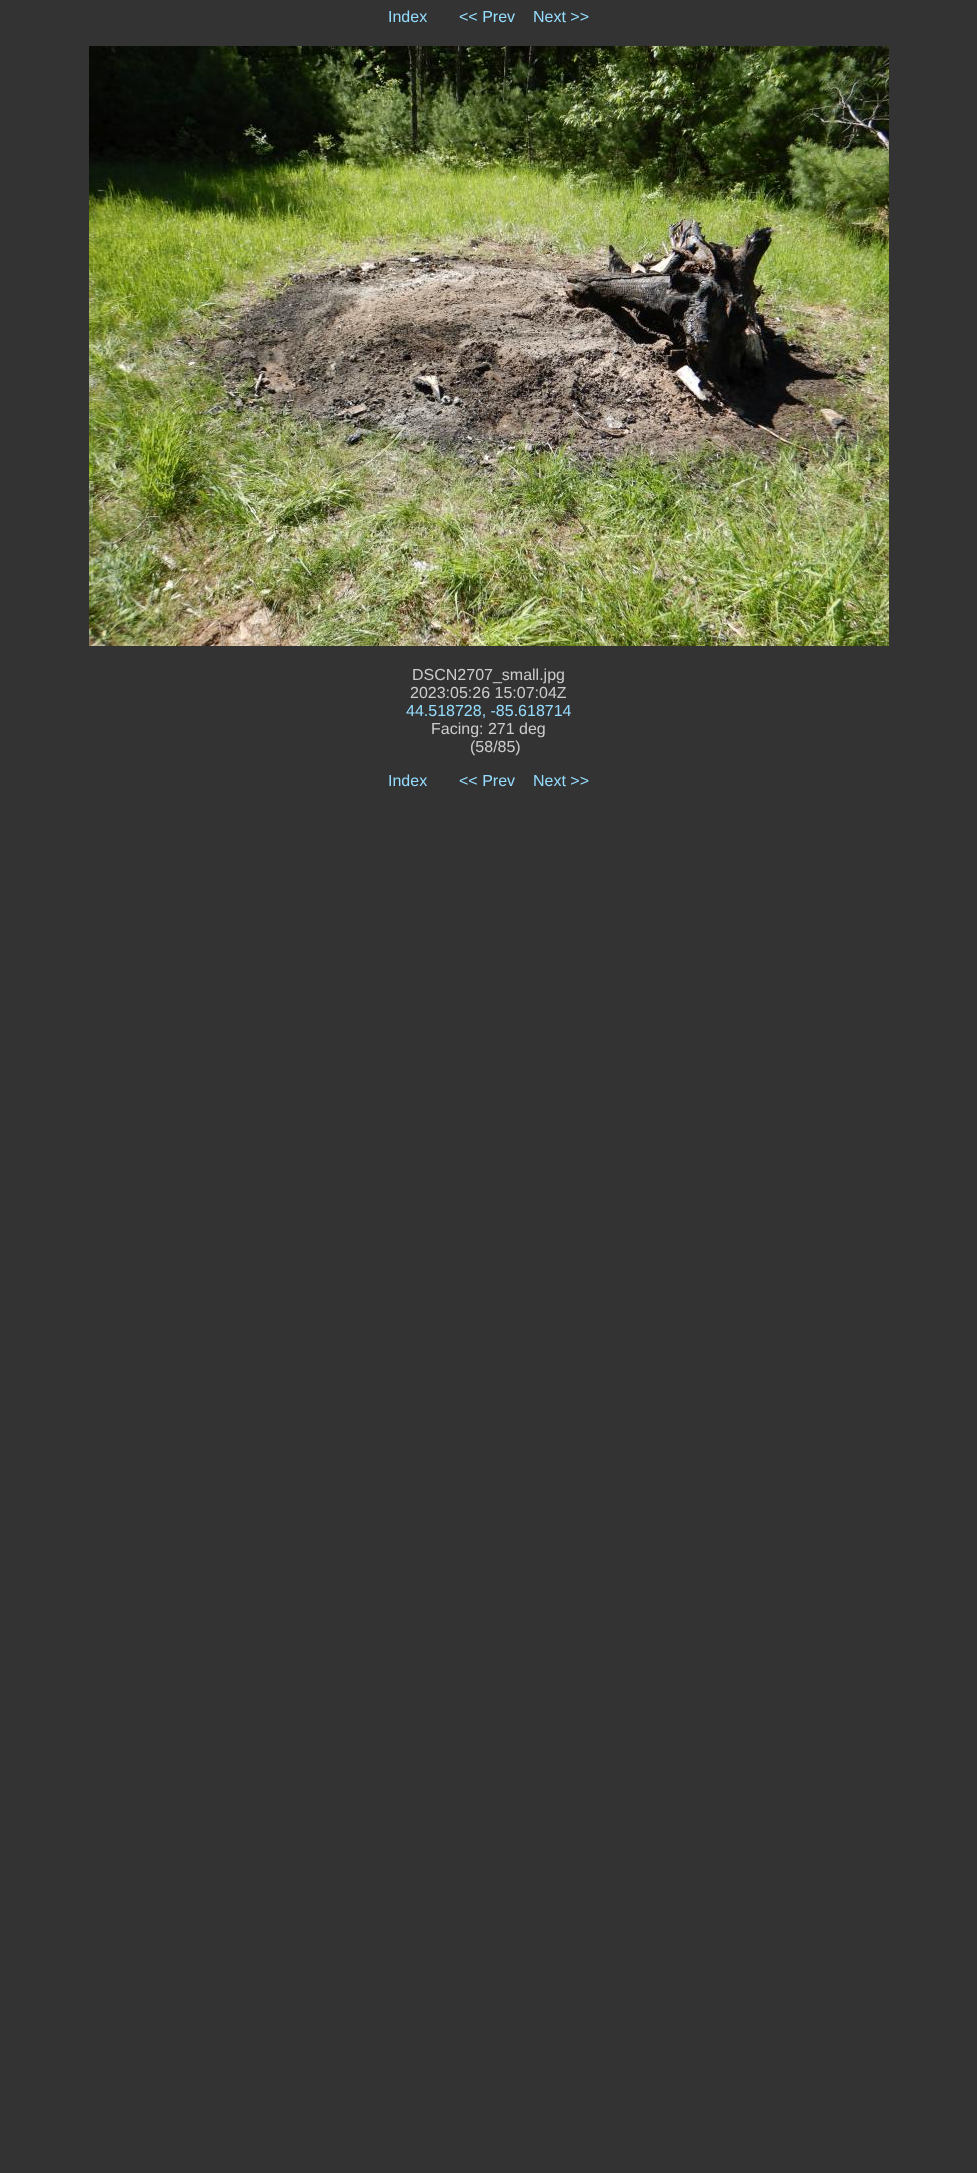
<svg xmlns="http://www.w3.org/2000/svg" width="977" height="2173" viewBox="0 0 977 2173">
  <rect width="100%" height="100%" fill="rgb(51,51,51)"/>
  <g font-family="Liberation Sans" font-size="16" fill="rgb(149,221,255)">
    <text x="388" y="22">Index</text>
    <text x="459" y="22">&lt;&lt; Prev</text>
    <text x="533" y="22">Next &gt;&gt;</text>
  </g>
  <image x="89" y="46" width="800" height="600" href="pic1.png"/>
  <g font-family="Liberation Sans" font-size="16" fill="rgb(204,204,204)">
    <text x="412" y="680">DSCN2707_small.jpg</text>
    <text x="410" y="698">2023:05:26 15:07:04Z</text>
  </g>
  <text x="406" y="716" font-family="Liberation Sans" font-size="16" fill="rgb(149,221,255)">44.518728, -85.618714</text>
  <g font-family="Liberation Sans" font-size="16" fill="rgb(204,204,204)">
    <text x="431" y="734">Facing: 271 deg</text>
    <text x="470" y="752">(58/85)</text>
  </g>
  <g font-family="Liberation Sans" font-size="16" fill="rgb(149,221,255)">
    <text x="388" y="786">Index</text>
    <text x="459" y="786">&lt;&lt; Prev</text>
    <text x="533" y="786">Next &gt;&gt;</text>
  </g>
</svg>
